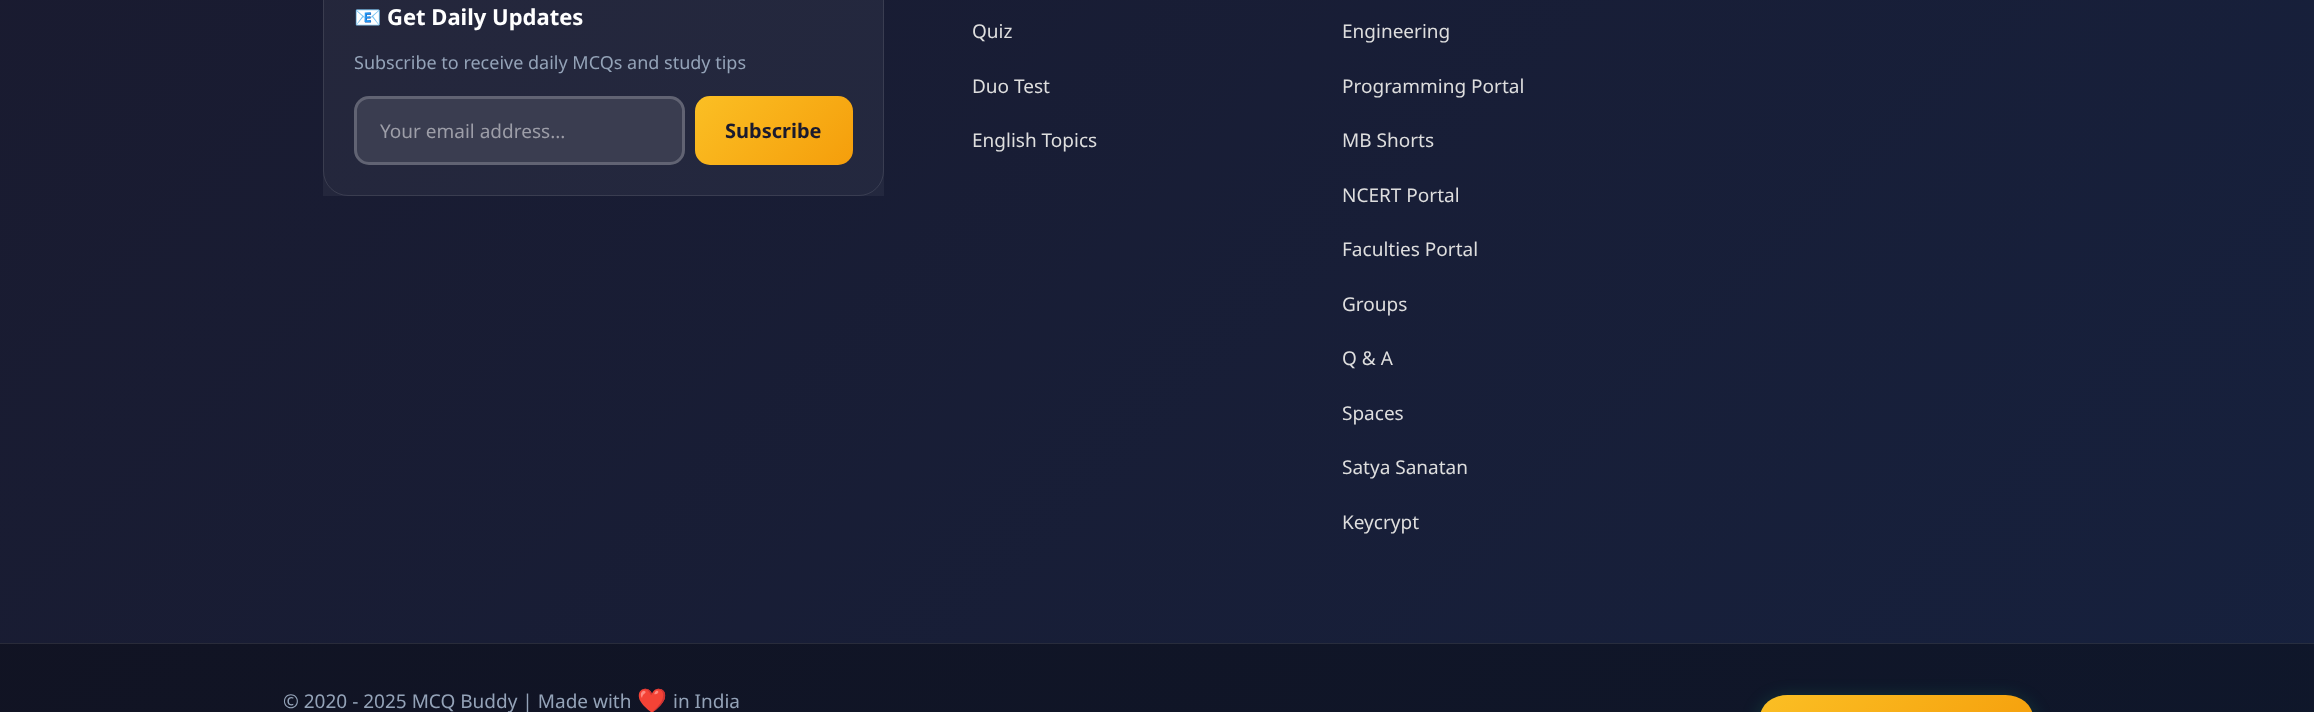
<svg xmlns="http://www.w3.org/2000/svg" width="2314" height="712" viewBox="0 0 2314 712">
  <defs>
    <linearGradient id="g1" gradientUnits="userSpaceOnUse" x1="223" y1="-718" x2="2092" y2="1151"><stop offset="0" stop-color="rgb(26,26,46)"/><stop offset="1" stop-color="rgb(22,33,62)"/></linearGradient>
    <linearGradient id="g2" gradientUnits="userSpaceOnUse" x1="223" y1="-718" x2="2092" y2="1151"><stop offset="0" stop-color="rgb(18,18,32)"/><stop offset="1" stop-color="rgb(15,23,43)"/></linearGradient>
    <linearGradient id="g3" gradientUnits="userSpaceOnUse" x1="223" y1="-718" x2="2092" y2="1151"><stop offset="0" stop-color="rgb(42,42,54)"/><stop offset="1" stop-color="rgb(39,46,64)"/></linearGradient>
    <linearGradient id="g4" gradientUnits="userSpaceOnUse" x1="717" y1="74" x2="830" y2="187"><stop offset="0" stop-color="rgb(251,191,36)"/><stop offset="1" stop-color="rgb(245,158,11)"/></linearGradient>
    <linearGradient id="g5" gradientUnits="userSpaceOnUse" x1="1814" y1="641" x2="1978" y2="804"><stop offset="0" stop-color="rgb(251,191,36)"/><stop offset="1" stop-color="rgb(245,158,11)"/></linearGradient>
  </defs>
  <rect width="100%" height="100%" fill="rgb(255,255,255)"/>
  <rect x="0" y="0" width="2314" height="643" fill="url(#g1)"/>
  <rect x="0" y="644" width="2314" height="68" fill="url(#g2)"/>
  <rect x="0" y="643" width="2314" height="1" fill="url(#g3)"/>
  <rect x="323" y="0" width="561" height="196" fill="rgba(255,255,255,0.05)"/>
  <rect x="323.5" y="-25.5" width="560" height="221" rx="24.5" fill="none" stroke="rgba(255,255,255,0.1)"/>
  <text x="354" y="25" font-family="Noto Color Emoji" font-size="22" font-weight="bold" fill="rgb(255,255,255)">📧</text>
  <text x="387" y="25" font-family="Noto Sans" font-size="22" font-weight="bold" fill="rgb(255,255,255)">Get Daily Updates</text>
  <text x="354" y="69" font-family="Noto Sans" font-size="18" fill="rgb(148,163,184)">Subscribe to receive daily MCQs and study tips</text>
  <rect x="354" y="96" width="331" height="69" rx="15" fill="rgb(58,61,80)"/>
  <rect x="355.5" y="97.5" width="328" height="66" rx="13.5" fill="none" stroke="rgba(255,255,255,0.2)" stroke-width="3"/>
  <text x="380" y="138" font-family="Noto Sans" font-size="19" fill="rgb(157,158,168)">Your email address...</text>
  <rect x="695" y="96" width="158" height="69" rx="15" fill="url(#g4)"/>
  <text x="725" y="138" font-family="Noto Sans" font-size="20" font-weight="bold" fill="rgb(26,26,46)">Subscribe</text>
  <g font-family="Noto Sans" font-size="19" fill="rgb(222,222,222)">
    <text x="972" y="38">Quiz</text>
    <text x="972" y="93">Duo Test</text>
    <text x="972" y="147">English Topics</text>
    <text x="1342" y="38">Engineering</text>
    <text x="1342" y="93">Programming Portal</text>
    <text x="1342" y="147">MB Shorts</text>
    <text x="1342" y="202">NCERT Portal</text>
    <text x="1342" y="256">Faculties Portal</text>
    <text x="1342" y="311">Groups</text>
    <text x="1342" y="365">Q &amp; A</text>
    <text x="1342" y="420">Spaces</text>
    <text x="1342" y="474">Satya Sanatan</text>
    <text x="1342" y="529">Keycrypt</text>
  </g>
  <text x="283" y="708" font-family="Noto Sans" font-size="19" fill="rgb(148,163,184)">© 2020 - 2025 MCQ Buddy | Made with</text>
  <text x="637" y="709" font-family="Noto Color Emoji" font-size="24" fill="rgb(239,68,68)">❤️</text>
  <text x="673" y="708" font-family="Noto Sans" font-size="19" fill="rgb(148,163,184)">in India</text>
  <rect x="1760" y="700" width="273" height="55" rx="27.5" fill="rgba(16,185,129,0.3)" filter="blur(9.5px)"/>
  <rect x="1760" y="695" width="273" height="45" rx="27.5" fill="url(#g5)"/>
</svg>
